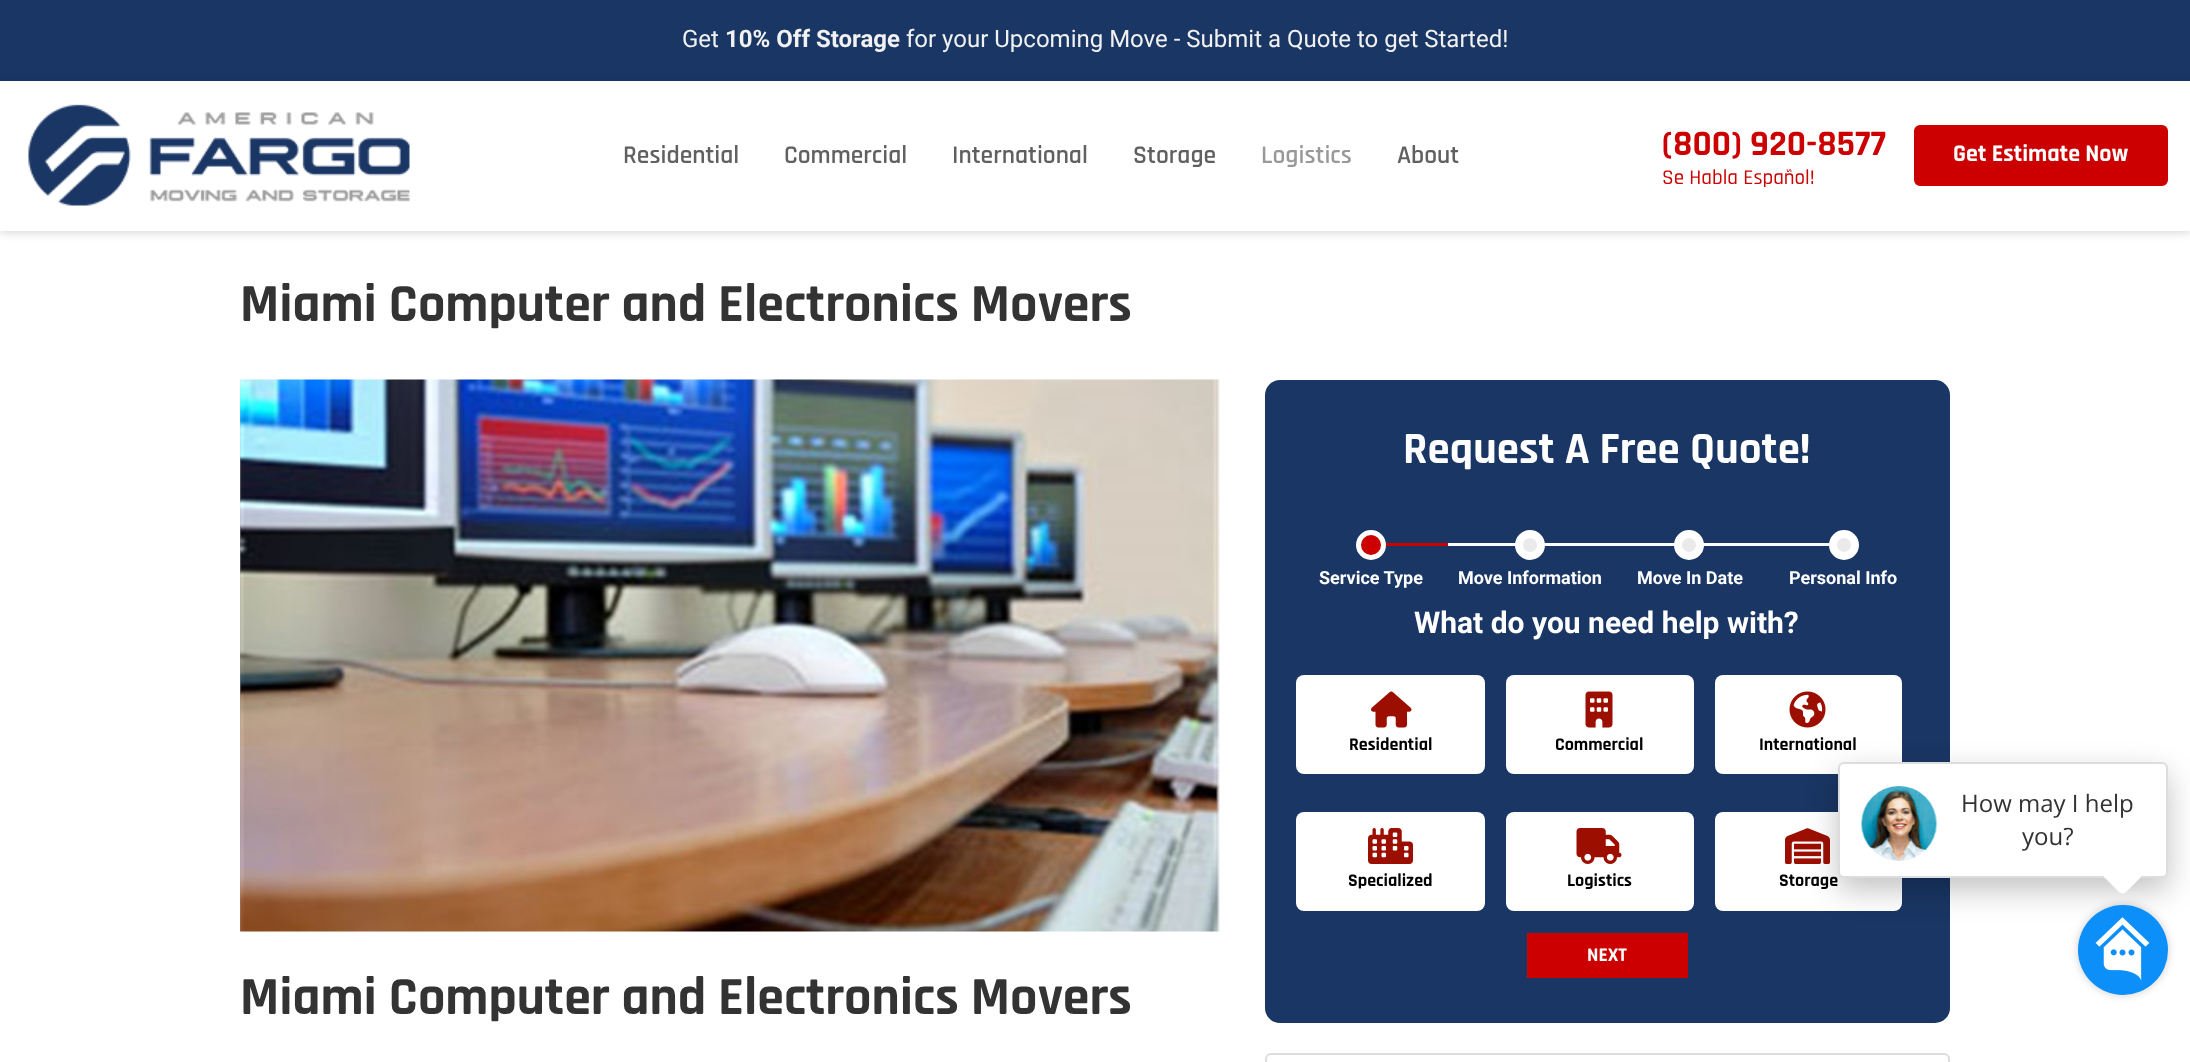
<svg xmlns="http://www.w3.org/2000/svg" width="2190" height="1062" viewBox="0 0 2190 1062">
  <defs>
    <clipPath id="clip1"><path d="M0 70H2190V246H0ZM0 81H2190V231H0Z" clip-rule="evenodd"/></clipPath>
  </defs>
  <rect width="100%" height="100%" fill="rgb(255,255,255)"/>
  <rect x="0" y="0" width="2190" height="81" fill="rgb(25,54,100)"/>
  <text x="682" y="47" font-family="Roboto" font-size="24" fill="rgb(241,241,241)">Get</text>
  <text x="725" y="47" font-family="Roboto" font-size="24" font-weight="bold" fill="rgb(241,241,241)">10% Off Storage</text>
  <text x="906" y="47" font-family="Roboto" font-size="24" fill="rgb(241,241,241)">for your Upcoming Move - Submit a Quote to get Started!</text>
  <g clip-path="url(#clip1)">
    <rect x="0" y="83" width="2190" height="150" fill="rgba(0,0,0,0.15)" filter="blur(4px)"/>
  </g>
  <image x="28" y="104" width="382" height="102" href="pic1.png"/>
  <g font-family="Rajdhani" font-size="25.5" font-weight="600" fill="rgb(96,96,96)">
    <text x="623" y="163">Residential</text>
    <text x="784" y="163">Commercial</text>
    <text x="952" y="163">International</text>
    <text x="1133" y="163">Storage</text>
  </g>
  <text x="1261" y="163" font-family="Rajdhani" font-size="25.5" font-weight="600" fill="rgb(153,153,153)">Logistics</text>
  <text x="1397" y="163" font-family="Rajdhani" font-size="25.5" font-weight="600" fill="rgb(96,96,96)">About</text>
  <text x="1662" y="155" font-family="Rajdhani" font-size="36" font-weight="bold" fill="rgb(204,0,0)">(800) 920-8577</text>
  <rect x="1915" y="126" width="252" height="59" rx="5" fill="rgb(204,0,0)" stroke="rgb(204,0,0)" stroke-width="2"/>
  <text x="1953" y="161" font-family="Rajdhani" font-size="24" font-weight="bold" fill="rgb(255,255,255)">Get Estimate Now</text>
  <text x="1662" y="184" font-family="Rajdhani" font-size="21" font-weight="500" fill="rgb(204,0,0)">Se Habla Español!</text>
  <text x="240" y="321" font-family="Rajdhani" font-size="54" font-weight="bold" fill="rgb(51,51,51)">Miami Computer and Electronics Movers</text>
  <rect x="1265" y="380" width="685" height="643" rx="15" fill="rgb(25,54,100)"/>
  <text x="1403" y="463" font-family="Rajdhani" font-size="45" font-weight="bold" fill="rgb(255,255,255)">Request A Free Quote!</text>
  <rect x="1385" y="543" width="63" height="3" fill="rgb(204,0,0)"/>
  <circle cx="1371" cy="545" r="12.5" fill="rgb(204,0,0)" stroke="rgb(255,255,255)" stroke-width="5"/>
  <text x="1319" y="584" font-family="Roboto" font-size="18" font-weight="bold" fill="rgb(255,255,255)">Service Type</text>
  <rect x="1448" y="543" width="382" height="3" fill="rgb(255,255,255)"/>
  <circle cx="1530" cy="545" r="11" fill="rgb(234,234,234)" stroke="rgb(255,255,255)" stroke-width="8"/>
  <text x="1458" y="584" font-family="Roboto" font-size="18" font-weight="bold" fill="rgb(255,255,255)">Move Information</text>
  <circle cx="1689" cy="545" r="11" fill="rgb(234,234,234)" stroke="rgb(255,255,255)" stroke-width="8"/>
  <text x="1637" y="584" font-family="Roboto" font-size="18" font-weight="bold" fill="rgb(255,255,255)">Move In Date</text>
  <circle cx="1844" cy="545" r="11" fill="rgb(234,234,234)" stroke="rgb(255,255,255)" stroke-width="8"/>
  <text x="1789" y="584" font-family="Roboto" font-size="18" font-weight="bold" fill="rgb(255,255,255)">Personal Info</text>
  <text x="1414" y="633" font-family="Roboto" font-size="30" font-weight="bold" fill="rgb(255,255,255)">What do you need help with?</text>
  <rect x="1296" y="675" width="189" height="99" rx="8" fill="rgb(255,255,255)"/>
  <image x="1371" y="691" width="41" height="37" href="pic2.png"/>
  <text x="1349" y="750" font-family="Rajdhani" font-size="18" font-weight="bold" fill="rgb(0,0,0)">Residential</text>
  <rect x="1506" y="675" width="188" height="99" rx="8" fill="rgb(255,255,255)"/>
  <image x="1585" y="691" width="28" height="37" href="pic3.png"/>
  <text x="1555" y="750" font-family="Rajdhani" font-size="18" font-weight="bold" fill="rgb(0,0,0)">Commercial</text>
  <rect x="1715" y="675" width="187" height="99" rx="8" fill="rgb(255,255,255)"/>
  <image x="1789" y="691" width="37" height="37" href="pic4.png"/>
  <text x="1759" y="750" font-family="Rajdhani" font-size="18" font-weight="bold" fill="rgb(0,0,0)">International</text>
  <rect x="1296" y="812" width="189" height="99" rx="8" fill="rgb(255,255,255)"/>
  <image x="1368" y="828" width="45" height="36" href="pic5.png"/>
  <text x="1348" y="886" font-family="Rajdhani" font-size="18" font-weight="bold" fill="rgb(0,0,0)">Specialized</text>
  <rect x="1506" y="812" width="188" height="99" rx="8" fill="rgb(255,255,255)"/>
  <image x="1576" y="828" width="46" height="36" href="pic6.png"/>
  <text x="1567" y="886" font-family="Rajdhani" font-size="18" font-weight="bold" fill="rgb(0,0,0)">Logistics</text>
  <rect x="1715" y="812" width="187" height="99" rx="8" fill="rgb(255,255,255)"/>
  <image x="1785" y="828" width="45" height="36" href="pic7.png"/>
  <text x="1779" y="886" font-family="Rajdhani" font-size="18" font-weight="bold" fill="rgb(0,0,0)">Storage</text>
  <rect x="1527" y="933" width="161" height="45" fill="rgb(204,0,0)"/>
  <text x="1587" y="961" font-family="Rajdhani" font-size="19.5" font-weight="bold" fill="rgb(255,255,255)">NEXT</text>
  <rect x="1266" y="1054" width="683" height="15" rx="5" fill="none" stroke="rgb(221,221,221)" stroke-width="2"/>
  <image x="240" y="379" width="980" height="553" href="pic8.png"/>
  <text x="240" y="1014" font-family="Rajdhani" font-size="54" font-weight="bold" fill="rgb(51,51,51)">Miami Computer and Electronics Movers</text>
  <rect x="1838" y="774" width="330" height="116" rx="6" fill="rgba(0,0,0,0.24)" filter="blur(15px)"/>
  <rect x="1839" y="763" width="328" height="114" rx="5" fill="rgb(255,255,255)" stroke="rgb(221,221,221)" stroke-width="2"/>
  <image x="1861" y="786" width="76" height="75" href="pic9.png"/>
  <g font-family="Open Sans" font-size="24" fill="rgb(51,51,51)">
    <text x="1961" y="812">How may I help</text>
    <text x="2022" y="845">you?</text>
  </g>
  <path d="M2126.5 857.5L2139.5 870.5C2142 872.5 2142 876.5 2139.5 878.5L2126.5 891.5C2124.5 894 2120.5 894 2118.5 891.5L2105.5 878.5C2103 876.5 2103 872.5 2105.5 870.5L2118.5 857.5C2120.5 855 2124.5 855 2126.5 857.5Z" fill="rgb(255,255,255)"/>
  <rect x="2078" y="905" width="90" height="90" rx="45" fill="rgba(0,0,0,0.2)" filter="blur(4px)"/>
  <circle cx="2123" cy="950" r="45" fill="rgb(13,143,249)"/>
  <image x="2095" y="917" width="55" height="65" href="pic10.png"/>
</svg>
